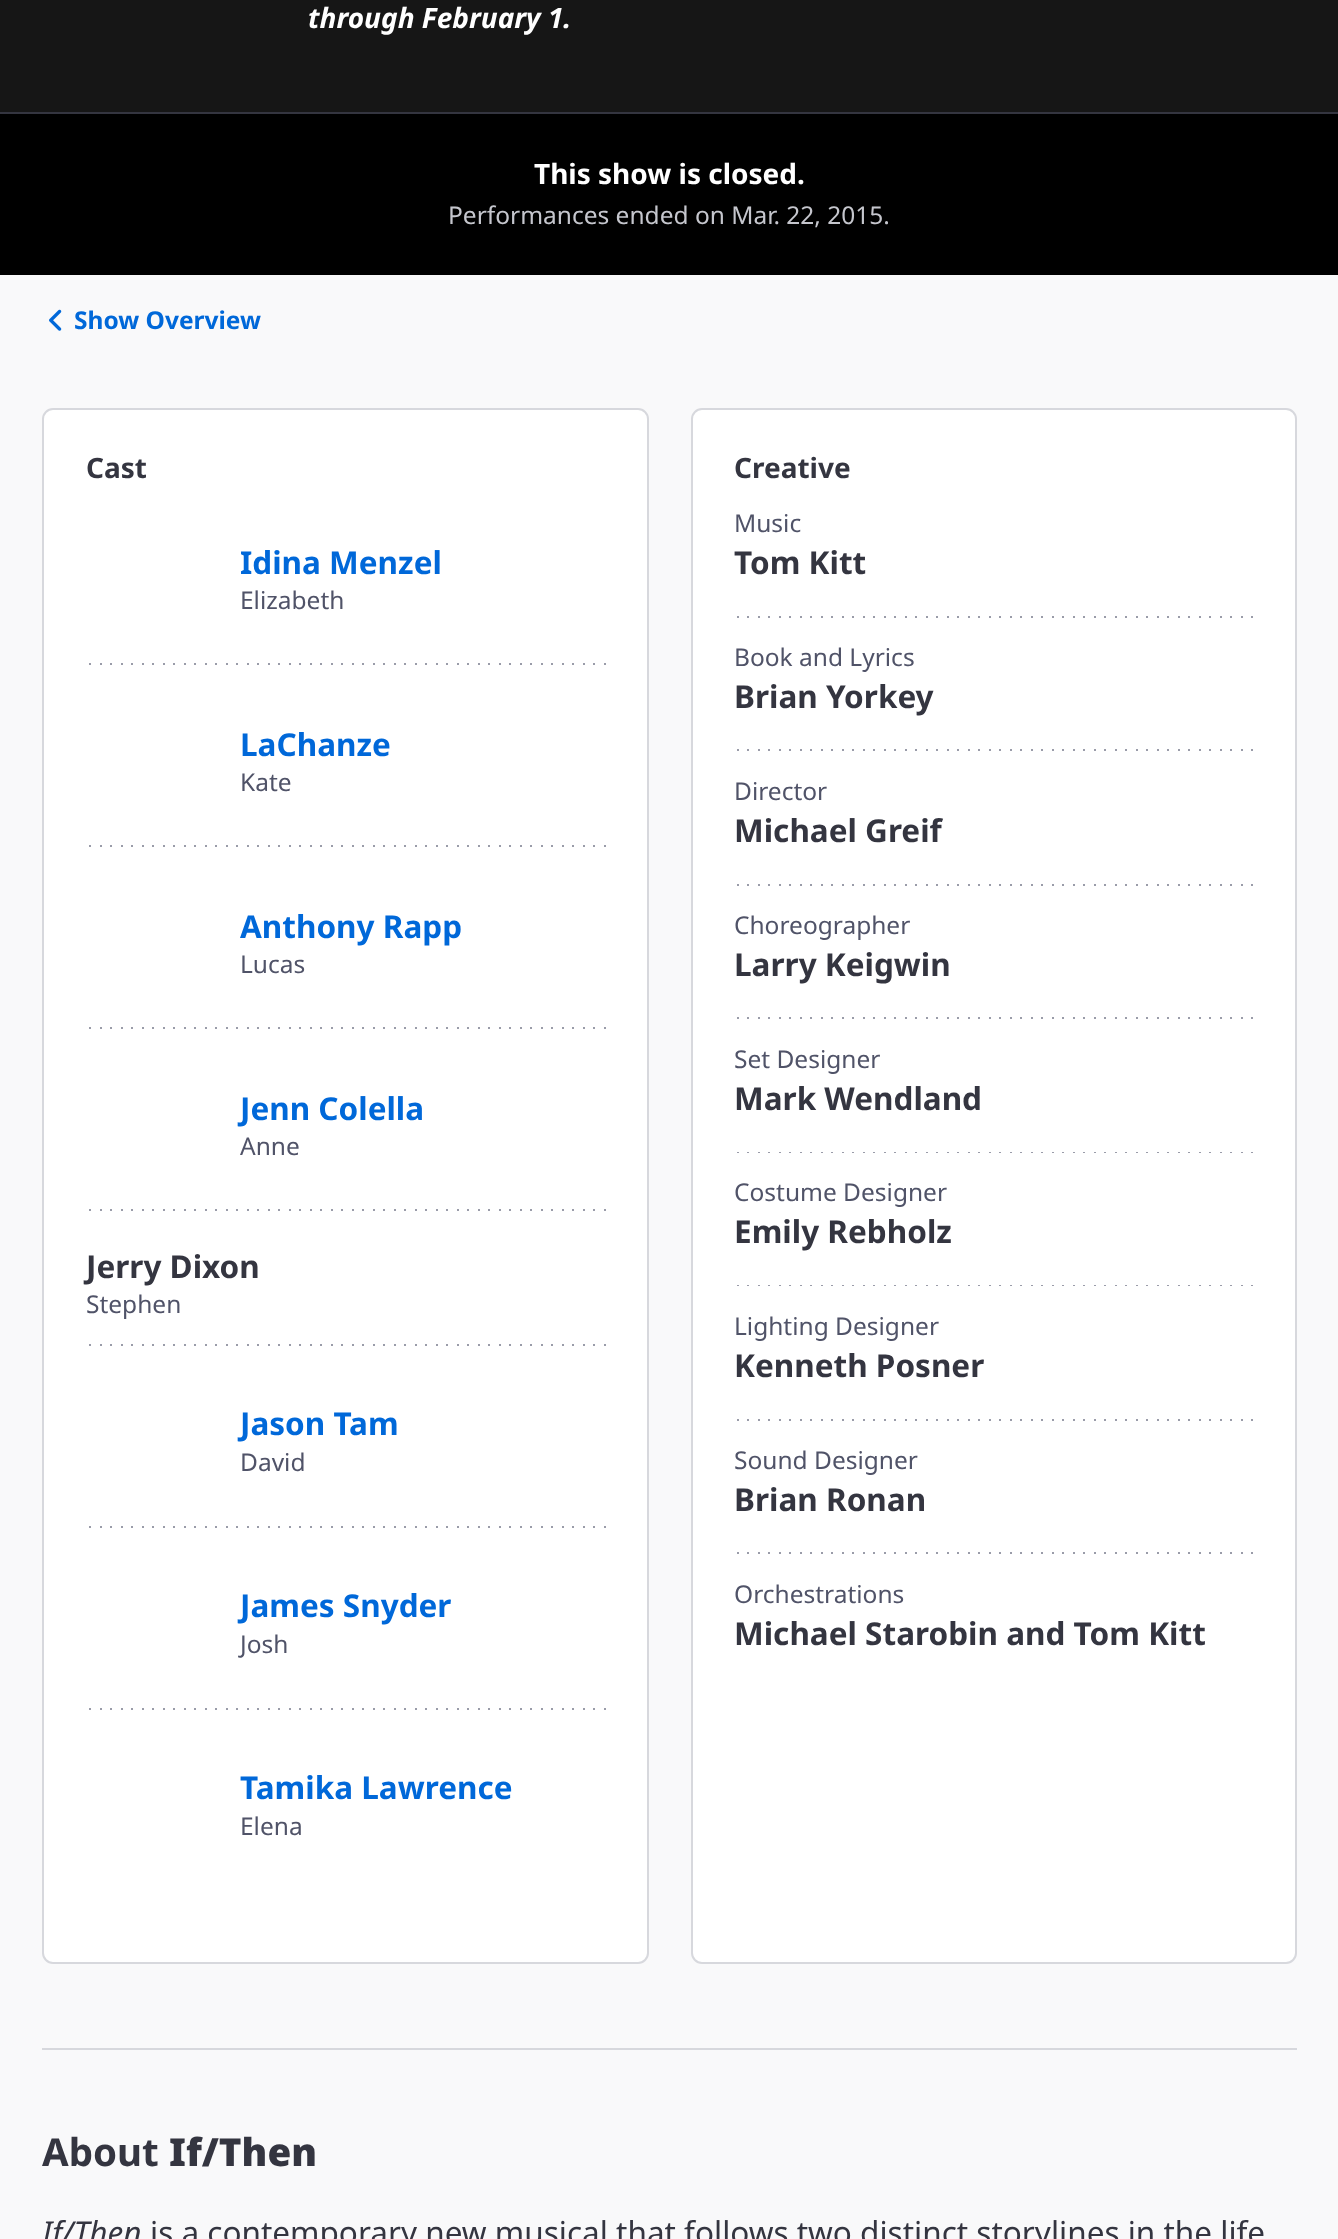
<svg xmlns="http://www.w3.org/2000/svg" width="1338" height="2239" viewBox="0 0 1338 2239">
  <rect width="100%" height="100%" fill="rgb(22,22,22)"/>
  <text x="308" y="28" font-family="Noto Sans" font-size="28" font-weight="bold" font-style="italic" fill="rgb(255,255,255)">through February 1.</text>
  <rect x="0" y="114" width="1338" height="161" fill="rgb(0,0,0)"/>
  <rect x="0" y="112" width="1338" height="2" fill="rgb(52,53,64)"/>
  <text x="534" y="184" font-family="Noto Sans" font-size="28" font-weight="bold" fill="rgb(255,255,255)">This show is closed.</text>
  <text x="448" y="224" font-family="Noto Sans" font-size="24.5" fill="rgb(197,198,205)">Performances ended on Mar. 22, 2015.</text>
  <rect x="0" y="275" width="1338" height="1964" fill="rgb(249,249,250)"/>
  <image x="49" y="309" width="13" height="22" href="pic1.png"/>
  <text x="74" y="329" font-family="Noto Sans" font-size="24.5" font-weight="bold" fill="rgb(0,104,217)">Show Overview</text>
  <rect x="43" y="409" width="605" height="1554" rx="10" fill="rgb(255,255,255)" stroke="rgb(215,216,221)" stroke-width="2"/>
  <text x="86" y="478" font-family="Noto Sans" font-size="28" font-weight="bold" fill="rgb(52,53,64)">Cast</text>
  <image x="89" y="663" width="517" height="2" href="pic2.png"/>
  <text x="240" y="574" font-family="Noto Sans" font-size="31.5" font-weight="bold" fill="rgb(0,104,217)">Idina Menzel</text>
  <text x="240" y="609" font-family="Noto Sans" font-size="24.5" fill="rgb(80,83,104)">Elizabeth</text>
  <image x="89" y="845" width="517" height="2" href="pic2.png"/>
  <text x="240" y="756" font-family="Noto Sans" font-size="31.5" font-weight="bold" fill="rgb(0,104,217)">LaChanze</text>
  <text x="240" y="791" font-family="Noto Sans" font-size="24.5" fill="rgb(80,83,104)">Kate</text>
  <image x="89" y="1027" width="517" height="2" href="pic2.png"/>
  <text x="240" y="938" font-family="Noto Sans" font-size="31.5" font-weight="bold" fill="rgb(0,104,217)">Anthony Rapp</text>
  <text x="240" y="973" font-family="Noto Sans" font-size="24.5" fill="rgb(80,83,104)">Lucas</text>
  <image x="89" y="1209" width="517" height="2" href="pic2.png"/>
  <text x="240" y="1120" font-family="Noto Sans" font-size="31.5" font-weight="bold" fill="rgb(0,104,217)">Jenn Colella</text>
  <text x="240" y="1155" font-family="Noto Sans" font-size="24.5" fill="rgb(80,83,104)">Anne</text>
  <image x="89" y="1344" width="517" height="2" href="pic2.png"/>
  <text x="86" y="1278" font-family="Noto Sans" font-size="31.5" font-weight="bold" fill="rgb(52,53,64)">Jerry Dixon</text>
  <text x="86" y="1313" font-family="Noto Sans" font-size="24.5" fill="rgb(80,83,104)">Stephen</text>
  <image x="89" y="1526" width="517" height="2" href="pic2.png"/>
  <text x="240" y="1435" font-family="Noto Sans" font-size="31.5" font-weight="bold" fill="rgb(0,104,217)">Jason Tam</text>
  <text x="240" y="1471" font-family="Noto Sans" font-size="24.5" fill="rgb(80,83,104)">David</text>
  <image x="89" y="1708" width="517" height="2" href="pic2.png"/>
  <text x="240" y="1617" font-family="Noto Sans" font-size="31.5" font-weight="bold" fill="rgb(0,104,217)">James Snyder</text>
  <text x="240" y="1653" font-family="Noto Sans" font-size="24.5" fill="rgb(80,83,104)">Josh</text>
  <text x="240" y="1799" font-family="Noto Sans" font-size="31.5" font-weight="bold" fill="rgb(0,104,217)">Tamika Lawrence</text>
  <text x="240" y="1835" font-family="Noto Sans" font-size="24.5" fill="rgb(80,83,104)">Elena</text>
  <rect x="692" y="409" width="604" height="1554" rx="10" fill="rgb(255,255,255)" stroke="rgb(215,216,221)" stroke-width="2"/>
  <text x="734" y="478" font-family="Noto Sans" font-size="28" font-weight="bold" fill="rgb(52,53,64)">Creative</text>
  <image x="737" y="616" width="516" height="2" href="pic3.png"/>
  <text x="734" y="532" font-family="Noto Sans" font-size="24.5" fill="rgb(80,83,104)">Music</text>
  <text x="734" y="574" font-family="Noto Sans" font-size="31.5" font-weight="bold" fill="rgb(52,53,64)">Tom Kitt</text>
  <image x="737" y="749" width="516" height="2" href="pic3.png"/>
  <text x="734" y="666" font-family="Noto Sans" font-size="24.5" fill="rgb(80,83,104)">Book and Lyrics</text>
  <text x="734" y="708" font-family="Noto Sans" font-size="31.5" font-weight="bold" fill="rgb(52,53,64)">Brian Yorkey</text>
  <image x="737" y="884" width="516" height="2" href="pic3.png"/>
  <text x="734" y="800" font-family="Noto Sans" font-size="24.5" fill="rgb(80,83,104)">Director</text>
  <text x="734" y="842" font-family="Noto Sans" font-size="31.5" font-weight="bold" fill="rgb(52,53,64)">Michael Greif</text>
  <image x="737" y="1017" width="516" height="2" href="pic3.png"/>
  <text x="734" y="934" font-family="Noto Sans" font-size="24.5" fill="rgb(80,83,104)">Choreographer</text>
  <text x="734" y="976" font-family="Noto Sans" font-size="31.5" font-weight="bold" fill="rgb(52,53,64)">Larry Keigwin</text>
  <image x="737" y="1152" width="516" height="1" href="pic4.png"/>
  <text x="734" y="1068" font-family="Noto Sans" font-size="24.5" fill="rgb(80,83,104)">Set Designer</text>
  <text x="734" y="1110" font-family="Noto Sans" font-size="31.5" font-weight="bold" fill="rgb(52,53,64)">Mark Wendland</text>
  <image x="737" y="1285" width="516" height="1" href="pic4.png"/>
  <text x="734" y="1201" font-family="Noto Sans" font-size="24.5" fill="rgb(80,83,104)">Costume Designer</text>
  <text x="734" y="1243" font-family="Noto Sans" font-size="31.5" font-weight="bold" fill="rgb(52,53,64)">Emily Rebholz</text>
  <image x="737" y="1419" width="516" height="2" href="pic3.png"/>
  <text x="734" y="1335" font-family="Noto Sans" font-size="24.5" fill="rgb(80,83,104)">Lighting Designer</text>
  <text x="734" y="1377" font-family="Noto Sans" font-size="31.5" font-weight="bold" fill="rgb(52,53,64)">Kenneth Posner</text>
  <image x="737" y="1552" width="516" height="2" href="pic3.png"/>
  <text x="734" y="1469" font-family="Noto Sans" font-size="24.5" fill="rgb(80,83,104)">Sound Designer</text>
  <text x="734" y="1511" font-family="Noto Sans" font-size="31.5" font-weight="bold" fill="rgb(52,53,64)">Brian Ronan</text>
  <text x="734" y="1603" font-family="Noto Sans" font-size="24.5" fill="rgb(80,83,104)">Orchestrations</text>
  <text x="734" y="1645" font-family="Noto Sans" font-size="31.5" font-weight="bold" fill="rgb(52,53,64)">Michael Starobin and Tom Kitt</text>
  <rect x="42" y="2048" width="1255" height="2" fill="rgb(215,216,221)"/>
  <text x="42" y="2166" font-family="Noto Sans" font-size="38.5" font-weight="bold" fill="rgb(52,53,64)">About</text>
  <text x="169" y="2166" font-family="Noto Sans" font-size="38.5" font-weight="900" fill="rgb(52,53,64)">If/Then</text>
  <text x="42" y="2244" font-family="Noto Sans" font-size="31.5" font-style="italic" fill="rgb(52,53,64)">If/Then</text>
  <text x="150" y="2244" font-family="Noto Sans" font-size="31.5" fill="rgb(52,53,64)">is a contemporary new musical that follows two distinct storylines in the life</text>
</svg>
